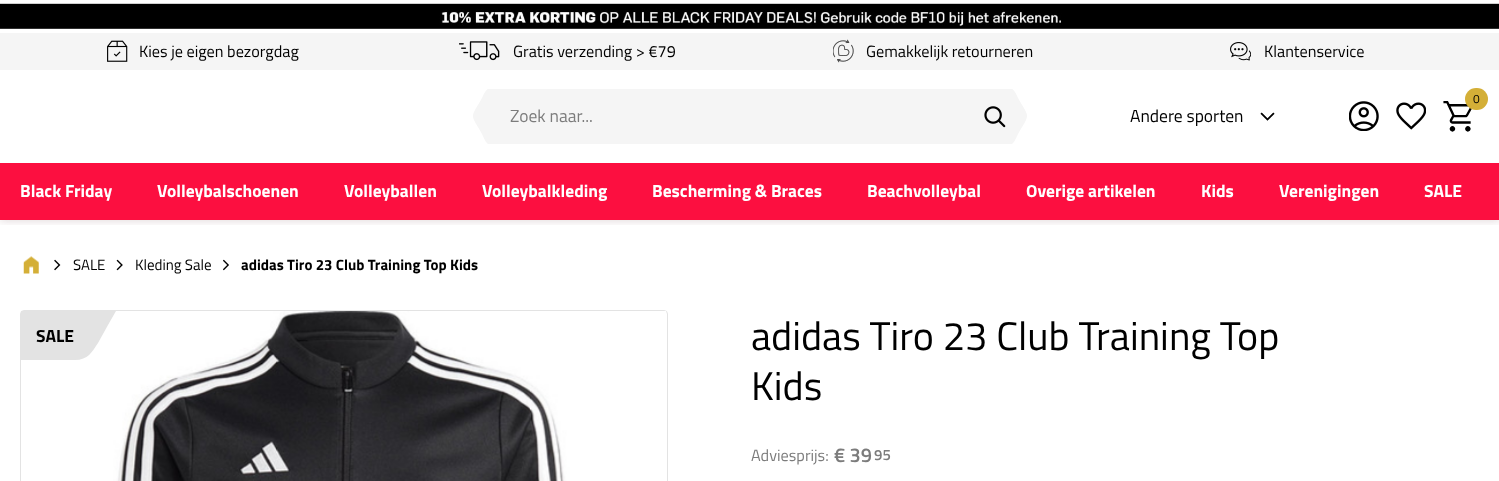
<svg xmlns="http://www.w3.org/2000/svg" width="1499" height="481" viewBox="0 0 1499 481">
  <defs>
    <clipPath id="clip1"><rect x="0" y="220" width="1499" height="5"/></clipPath>
    <clipPath id="clip2"><rect x="1009" y="89" width="19" height="55"/></clipPath>
    <clipPath id="clip3"><rect x="473" y="89" width="18" height="55"/></clipPath>
  </defs>
  <rect width="100%" height="100%" fill="rgb(255,255,255)"/>
  <image x="0" y="3" width="1499" height="26" href="pic1.png"/>
  <g clip-path="url(#clip1)">
    <rect x="0" y="71" width="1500" height="150" fill="rgba(58,5,16,0.15)" filter="blur(4px)"/>
  </g>
  <rect x="0" y="33" width="1499" height="37" fill="rgb(245,245,245)"/>
  <image x="107" y="40" width="21" height="22" href="pic2.png"/>
  <text x="139" y="57" font-family="Titillium Web" font-size="16.25" fill="rgb(0,0,0)">Kies je eigen bezorgdag</text>
  <image x="459" y="41" width="41" height="20" href="pic3.png"/>
  <text x="513" y="57" font-family="Titillium Web" font-size="16.25" fill="rgb(0,0,0)">Gratis verzending &gt; €79</text>
  <image x="833" y="39" width="21" height="24" href="pic4.png"/>
  <text x="866" y="57" font-family="Titillium Web" font-size="16.25" fill="rgb(0,0,0)">Gemakkelijk retourneren</text>
  <image x="1230" y="42" width="21" height="19" href="pic5.png"/>
  <text x="1264" y="57" font-family="Titillium Web" font-size="16.25" fill="rgb(0,0,0)">Klantenservice</text>
  <g clip-path="url(#clip2)">
    <path d="M1009 88C1014 88 1016 94 1018 98C1030 119 1030 113 1018 134C1016 138 1014 145 1009 145Z" fill="rgb(245,245,245)"/>
  </g>
  <g clip-path="url(#clip3)">
    <path d="M491 88C486 88 484 94 482 98C470 119 470 113 482 134C484 138 486 145 491 145Z" fill="rgb(245,245,245)"/>
  </g>
  <rect x="491" y="89" width="518" height="55" fill="rgb(245,245,245)"/>
  <text x="510" y="122" font-family="Titillium Web" font-size="17.5" fill="rgb(124,124,124)">Zoek naar...</text>
  <image x="984" y="106" width="22" height="22" href="pic6.png"/>
  <image x="1443" y="101" width="29" height="31" href="pic7.png"/>
  <rect x="1465" y="88" width="23" height="22" rx="11" fill="rgb(212,175,55)"/>
  <text x="1473" y="103" font-family="Titillium Web" font-size="12" fill="rgb(0,0,0)">0</text>
  <image x="1349" y="101" width="30" height="30" href="pic8.png"/>
  <image x="1396" y="102" width="30" height="28" href="pic9.png"/>
  <image x="1260" y="112" width="15" height="9" href="pic10.png"/>
  <text x="1130" y="122" font-family="Titillium Web" font-size="17.5" fill="rgb(0,0,0)">Andere sporten</text>
  <rect x="0" y="163" width="1499" height="57" fill="rgb(252,15,64)"/>
  <g font-family="Titillium Web" font-size="17.5" font-weight="bold" fill="rgb(255,255,255)">
    <text x="20" y="197">Black Friday</text>
    <text x="157" y="197">Volleybalschoenen</text>
    <text x="344" y="197">Volleyballen</text>
    <text x="482" y="197">Volleybalkleding</text>
    <text x="652" y="197">Bescherming &amp; Braces</text>
    <text x="867" y="197">Beachvolleybal</text>
    <text x="1026" y="197">Overige artikelen</text>
    <text x="1201" y="197">Kids</text>
    <text x="1279" y="197">Verenigingen</text>
    <text x="1424" y="197">SALE</text>
  </g>
  <image x="23" y="256" width="16" height="18" href="pic11.png"/>
  <image x="54" y="259" width="7" height="12" href="pic12.png"/>
  <text x="73" y="270" font-family="Titillium Web" font-size="15" fill="rgb(0,0,0)">SALE</text>
  <image x="116" y="259" width="7" height="12" href="pic13.png"/>
  <text x="135" y="270" font-family="Titillium Web" font-size="15" fill="rgb(0,0,0)">Kleding Sale</text>
  <image x="223" y="259" width="6" height="12" href="pic14.png"/>
  <text x="241" y="270" font-family="Titillium Web" font-size="15" font-weight="bold" fill="rgb(0,0,0)">adidas Tiro 23 Club Training Top Kids</text>
  <rect x="20.5" y="310.5" width="647" height="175" rx="3.5" fill="none" stroke="rgb(227,227,227)"/>
  <image x="21" y="311" width="645" height="170" href="pic15.png"/>
  <rect x="21" y="311" width="53" height="49" fill="rgb(227,227,227)"/>
  <text x="36" y="342" font-family="Titillium Web" font-size="17.5" font-weight="bold" fill="rgb(0,0,0)">SALE</text>
  <path d="M108 325L116 311H74V360H75C88 360 92 352 98 343Z" fill="rgb(227,227,227)" fill-rule="evenodd"/>
  <g font-family="Titillium Web" font-size="40" fill="rgb(0,0,0)">
    <text>
      <tspan x="751" y="350">adidas Tiro 23 Club Training Top</tspan>
      <tspan x="751" y="400">Kids</tspan>
    </text>
  </g>
  <text x="751" y="461" font-family="Titillium Web" font-size="16.25" fill="rgb(124,124,124)">Adviesprijs:</text>
  <text x="834" y="462" font-family="Titillium Web" font-size="20" font-weight="600" fill="rgb(124,124,124)">€ 39</text>
  <text x="874" y="460" font-family="Titillium Web" font-size="15" font-weight="600" fill="rgb(124,124,124)">95</text>
</svg>
